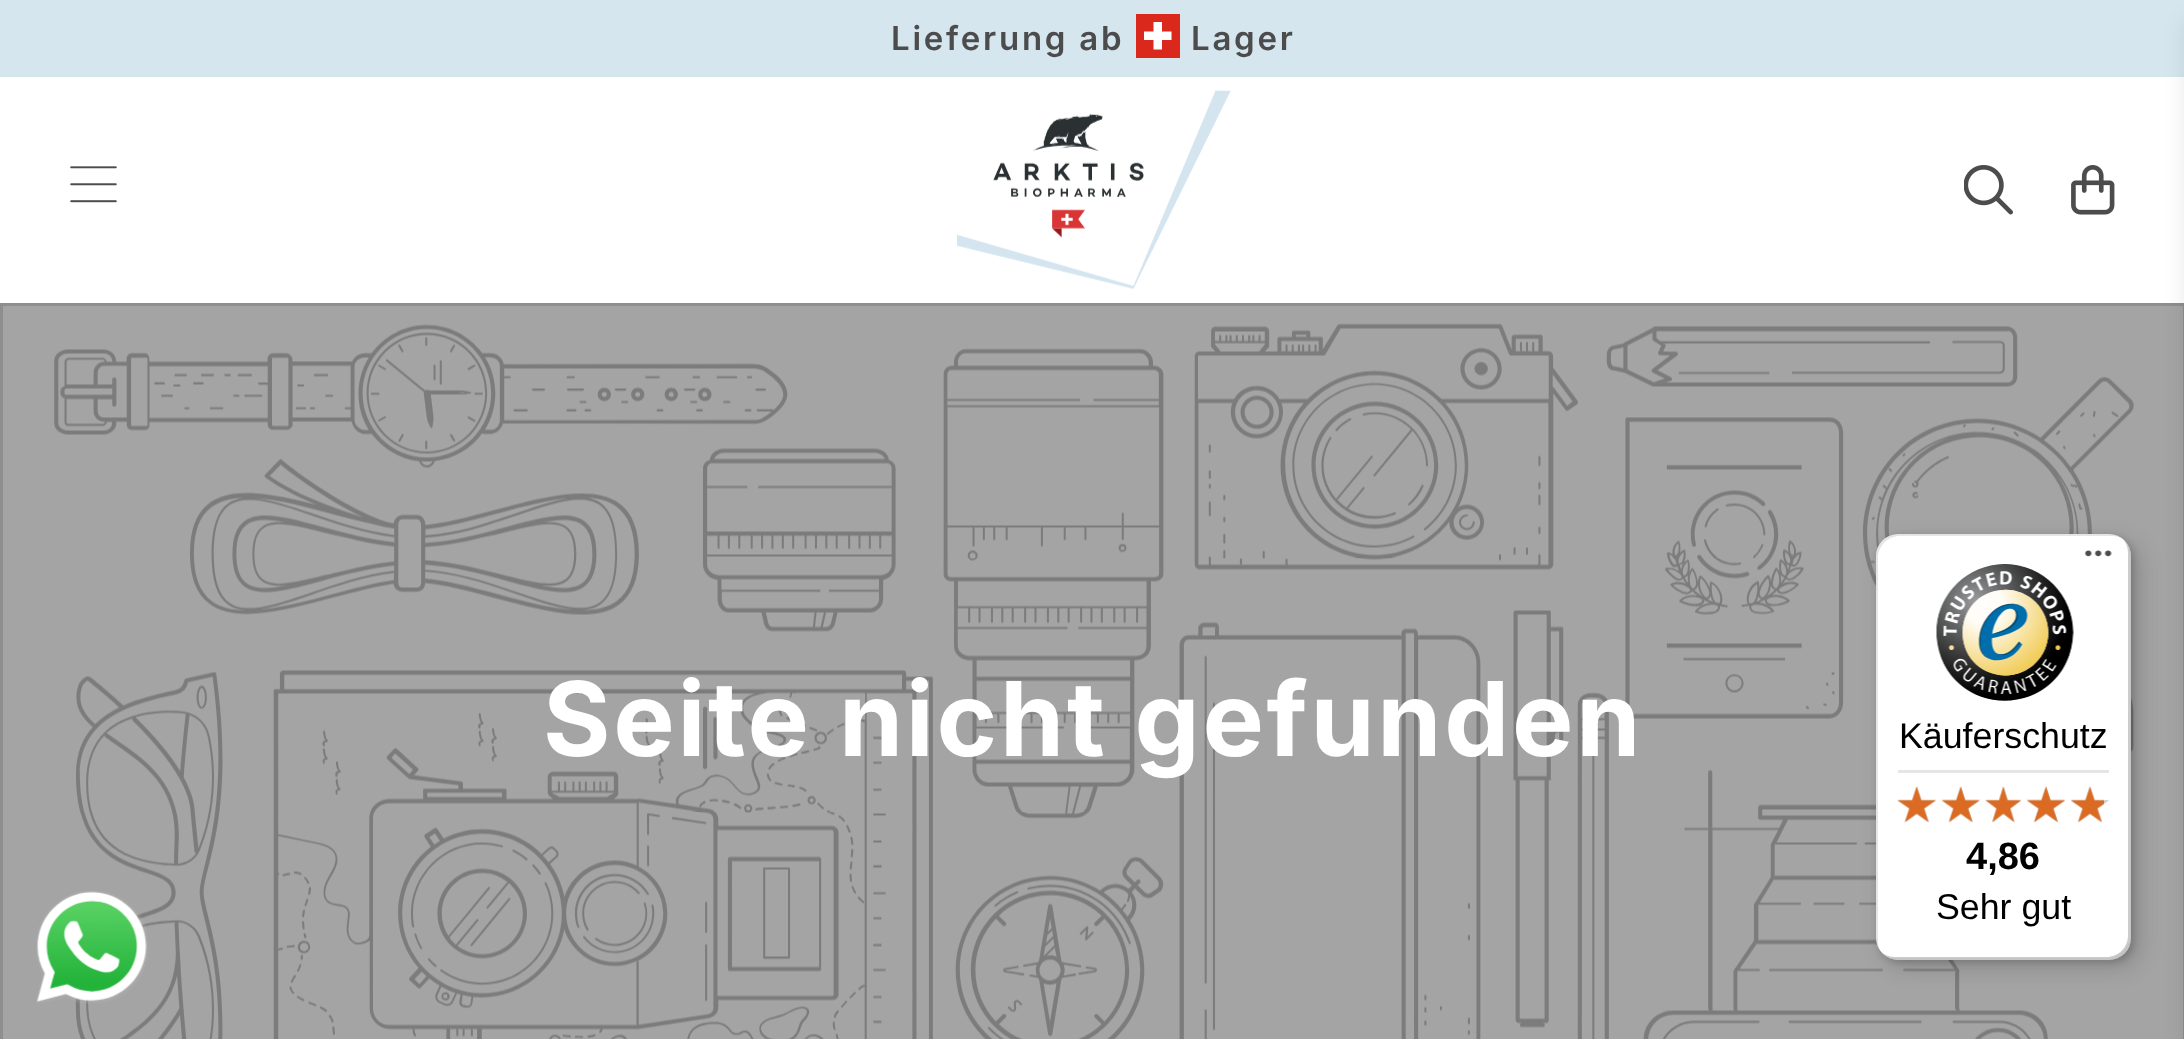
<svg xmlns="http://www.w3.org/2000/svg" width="2184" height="1039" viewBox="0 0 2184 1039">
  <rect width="100%" height="100%" fill="rgb(255,255,255)"/>
  <image x="70" y="166" width="47" height="37" href="pic1.png"/>
  <image x="957" y="90" width="274" height="199" href="pic2.png"/>
  <image x="1964" y="165" width="49" height="50" href="pic3.png"/>
  <image x="2071" y="165" width="44" height="50" href="pic4.png"/>
  <rect x="0" y="0" width="2184" height="77" fill="rgb(213,230,239)"/>
  <rect x="1.5" y="304.5" width="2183" height="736" fill="rgb(164,164,164)" stroke="rgb(142,142,142)" stroke-width="3"/>
  <rect x="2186" y="22" width="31" height="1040" fill="rgba(10,10,10,0.1)" filter="blur(11px)"/>
  <text x="891" y="50" font-family="Inter" font-size="33" font-weight="600" letter-spacing="2.75" fill="rgb(76,76,76)">Lieferung ab</text>
  <rect x="1136" y="14" width="44" height="44" fill="rgb(218,41,28)"/>
  <path d="M1153.5 22H1162V31.5H1171.5V40H1162V49.5H1153.5V40H1144V31.5H1153.5Z" fill="rgb(255,255,255)"/>
  <text x="1191" y="50" font-family="Inter" font-size="33" font-weight="600" letter-spacing="2.75" fill="rgb(76,76,76)">Lager</text>
  <image x="54" y="323" width="2080" height="716" href="pic5.png"/>
  <text x="543" y="756" font-family="Inter" font-size="103.1" font-weight="bold" letter-spacing="2.75" fill="rgb(255,255,255)">Seite nicht gefunden</text>
  <rect x="1884" y="542" width="256" height="426" rx="22" fill="rgba(0,0,0,0.15)" filter="blur(11px)"/>
  <rect x="1878" y="536" width="256" height="427" rx="22" fill="rgba(0,0,0,0.15)" filter="blur(3px)"/>
  <rect x="1876" y="534" width="255" height="426" rx="22" fill="rgb(255,255,255)"/>
  <path d="M1900 536H2112C2116 536 2120 537 2123 539C2119 536 2114 534 2109 534H1898C1886 534 1876 544 1876 556V938C1876 944 1878 950 1882 954C1880 950 1878 945 1878 940V558C1878 546 1888 536 1900 536Z" fill="rgba(0,0,0,0.1)"/>
  <path d="M1881 952C1885 957 1891 960 1898 960H2109C2121 960 2131 950 2131 938V556C2131 549 2128 544 2124 540C2126 543 2128 548 2128 553V935C2128 947 2119 957 2106 957H1895C1890 957 1885 955 1881 952Z" fill="rgba(0,0,0,0.2)"/>
  <path d="M1881 952C1885 957 1891 960 1898 960H2109C2121 960 2131 950 2131 938V556C2131 552 2130 548 2128 545C2129 548 2130 551 2130 554V936C2130 948 2120 958 2108 958H1896C1890 958 1885 956 1881 952Z" fill="rgba(50,50,50,0.2)"/>
  <path d="M1882 953C1886 958 1892 960 1898 960H2109C2121 960 2131 950 2131 938V556C2131 552 2130 548 2128 545C2129 548 2130 551 2130 554V936C2130 949 2120 958 2108 958H1896C1891 958 1886 956 1882 953Z" fill="rgba(255,255,255,0.3)"/>
  <image x="2084" y="550" width="28" height="7" href="pic6.png"/>
  <image x="1936" y="564" width="138" height="137" href="pic7.png"/>
  <text x="1899" y="748" font-family="Liberation Sans" font-size="35.75" fill="rgb(0,0,0)">Käuferschutz</text>
  <rect x="1898" y="770" width="211" height="3" fill="rgb(229,229,229)"/>
  <image x="1897" y="787" width="39" height="35" href="pic8.png"/>
  <image x="1942" y="786" width="38" height="36" href="pic9.png"/>
  <image x="1985" y="787" width="36" height="35" href="pic10.png"/>
  <image x="2027" y="786" width="38" height="36" href="pic11.png"/>
  <image x="2071" y="787" width="38" height="35" href="pic12.png"/>
  <image x="1897" y="786" width="39" height="37" href="pic13.png"/>
  <image x="1941" y="786" width="39" height="37" href="pic14.png"/>
  <image x="1985" y="786" width="37" height="37" href="pic15.png"/>
  <image x="2026" y="786" width="39" height="37" href="pic16.png"/>
  <image x="2070" y="786" width="34" height="37" href="pic17.png"/>
  <text x="1966" y="869" font-family="Liberation Sans" font-size="38" font-weight="bold" fill="rgb(0,0,0)">4,86</text>
  <text x="1936" y="919" font-family="Liberation Sans" font-size="35.75" fill="rgb(0,0,0)">Sehr gut</text>
  <image x="36" y="891" width="112" height="113" href="pic18.png"/>
</svg>
